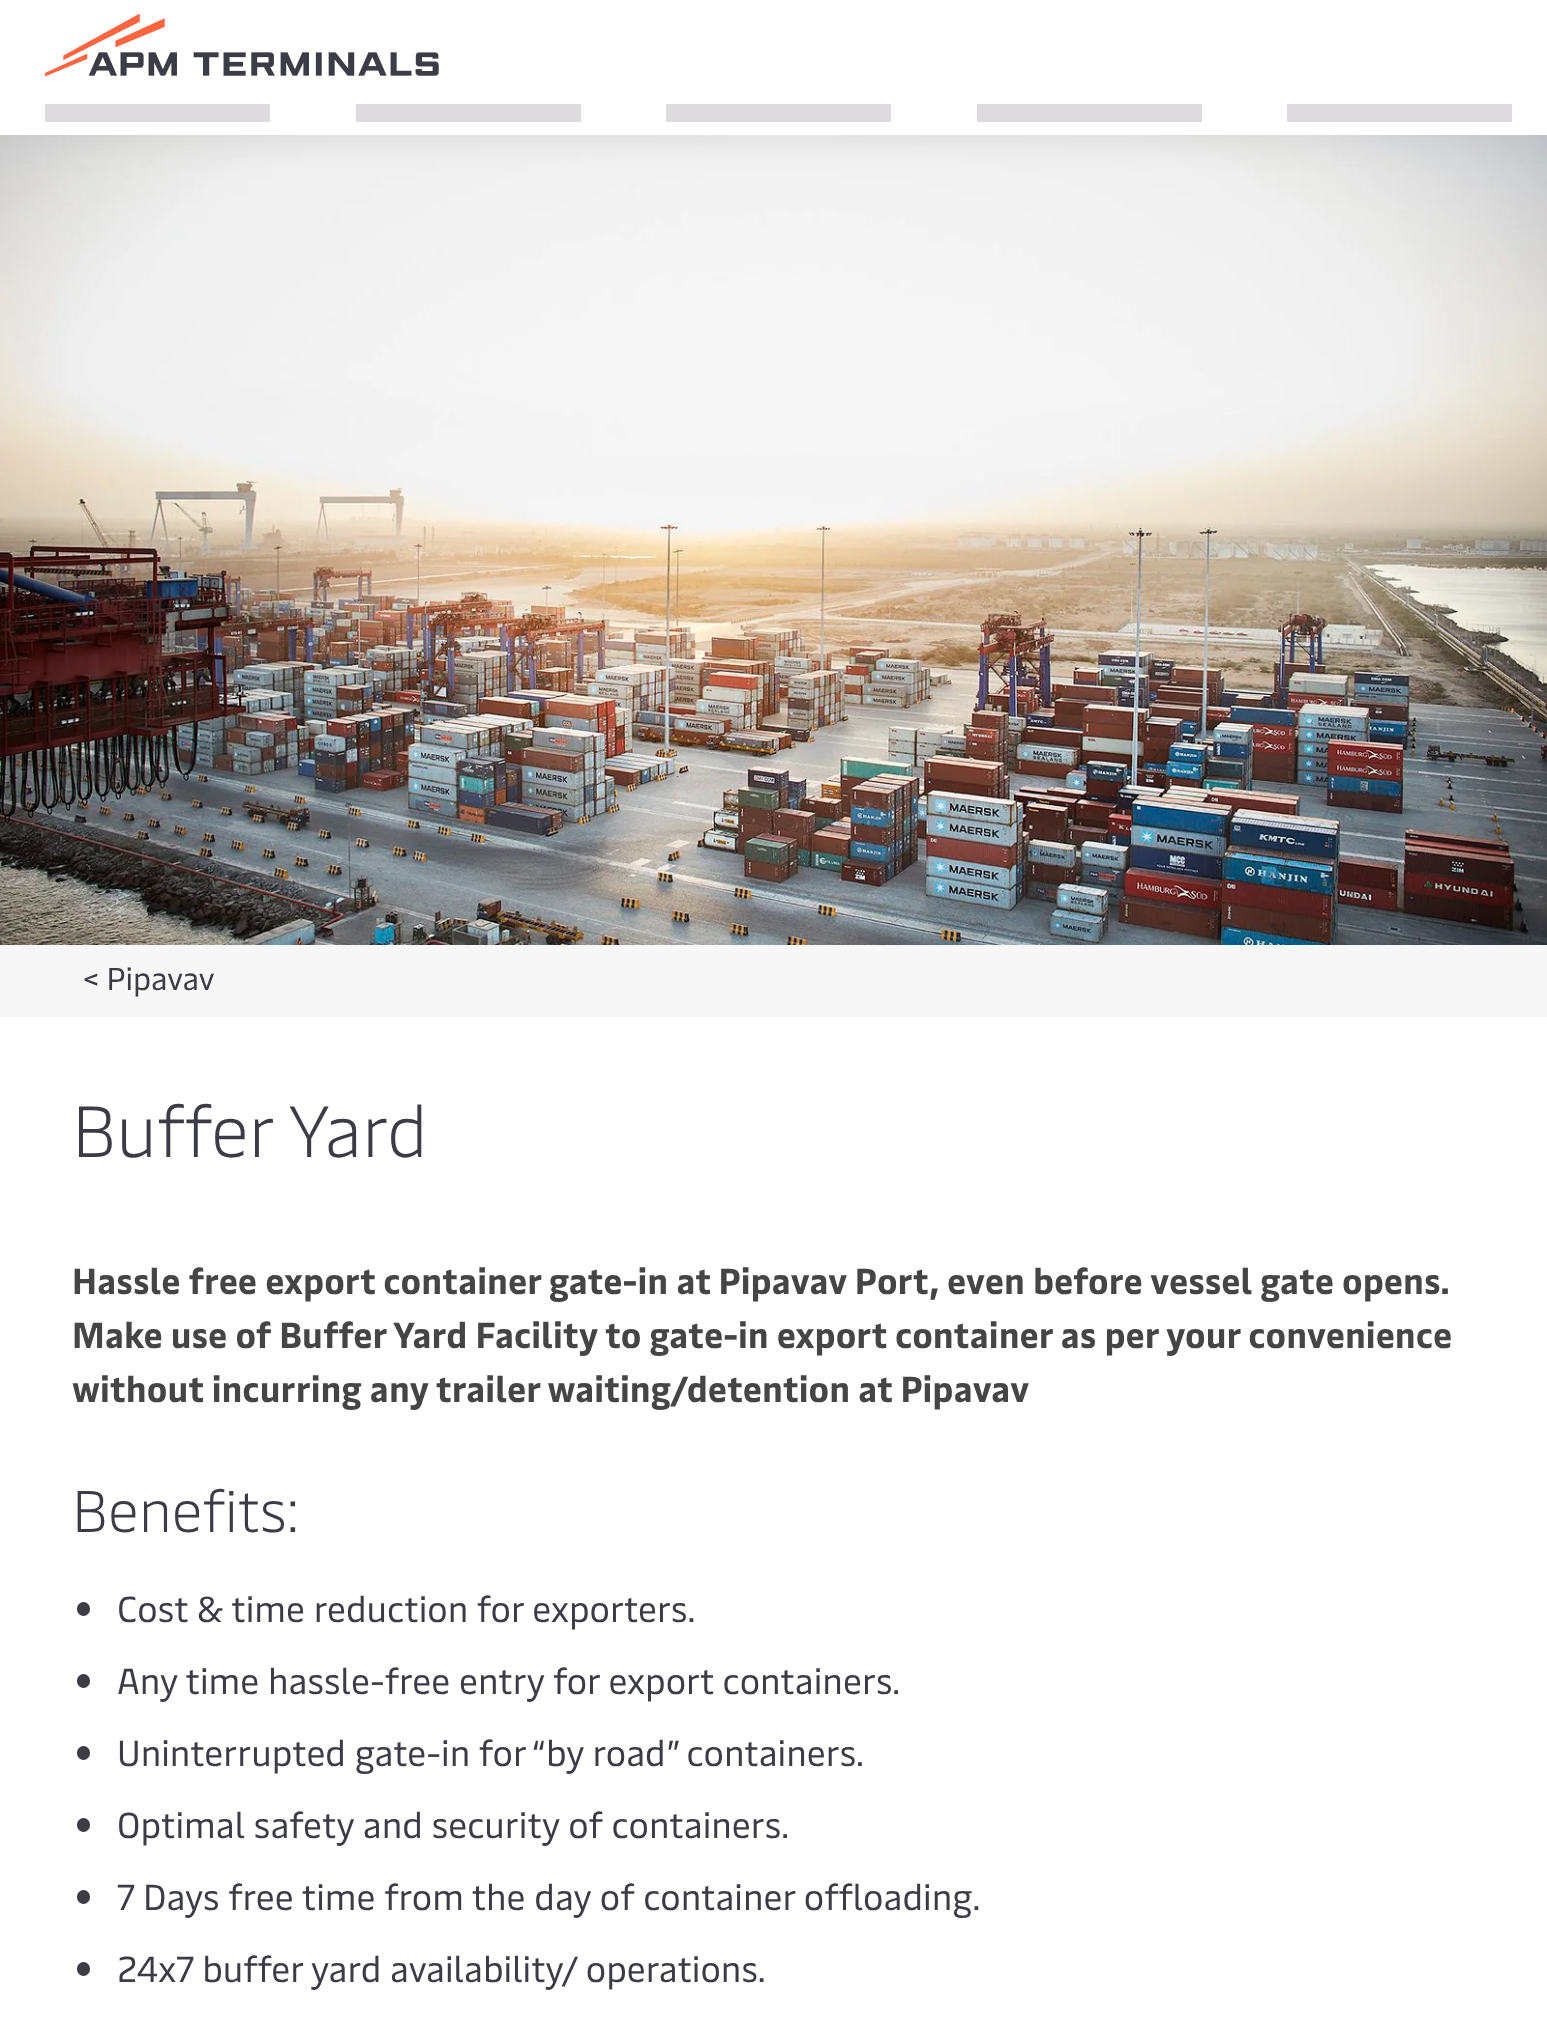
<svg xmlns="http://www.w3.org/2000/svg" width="1547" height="2017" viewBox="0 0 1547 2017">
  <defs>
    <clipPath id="clip1"><rect x="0" y="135" width="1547" height="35"/></clipPath>
  </defs>
  <rect width="100%" height="100%" fill="rgb(255,255,255)"/>
  <image x="0" y="135" width="1547" height="810" href="pic2.png"/>
  <g clip-path="url(#clip1)">
    <rect x="0" y="5" width="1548" height="135" fill="rgba(197,197,197,0.5)" filter="blur(17px)"/>
  </g>
  <image x="45" y="14" width="394" height="63" href="pic1.png"/>
  <rect x="45" y="104" width="225" height="18" fill="rgb(221,219,221)"/>
  <rect x="356" y="104" width="225" height="18" fill="rgb(221,219,221)"/>
  <rect x="666" y="104" width="225" height="18" fill="rgb(221,219,221)"/>
  <rect x="977" y="104" width="225" height="18" fill="rgb(221,219,221)"/>
  <rect x="1287" y="104" width="225" height="18" fill="rgb(221,219,221)"/>
  <rect x="0" y="945" width="1547" height="72" fill="rgb(247,247,247)"/>
  <text x="83" y="990" font-family="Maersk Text" font-size="31.5" fill="rgb(60,60,70)">&lt; Pipavav</text>
  <text x="72" y="1157" font-family="Maersk Text" font-size="72" font-weight="300" fill="rgb(60,60,70)">Buffer Yard</text>
  <g font-family="Maersk Text" font-size="36" font-weight="bold" fill="rgb(69,69,69)">
    <text>
      <tspan x="72" y="1294">Hassle free export container gate-in at Pipavav Port, even before vessel gate opens.</tspan>
      <tspan x="72" y="1348">Make use of Buffer Yard Facility to gate-in export container as per your convenience</tspan>
      <tspan x="72" y="1402">without incurring any trailer waiting/detention at Pipavav</tspan>
    </text>
  </g>
  <text x="72" y="1532" font-family="Maersk Text" font-size="58.5" font-weight="300" fill="rgb(60,60,70)">Benefits:</text>
  <rect x="77" y="1602" width="13" height="14" rx="6.5" fill="rgb(60,60,70)"/>
  <text x="117" y="1622" font-family="Maersk Text" font-size="36" fill="rgb(60,60,70)">Cost &amp; time reduction for exporters.</text>
  <rect x="77" y="1674" width="13" height="14" rx="6.5" fill="rgb(60,60,70)"/>
  <text x="117" y="1694" font-family="Maersk Text" font-size="36" fill="rgb(60,60,70)">Any time hassle-free entry for export containers.</text>
  <rect x="77" y="1746" width="13" height="14" rx="6.5" fill="rgb(60,60,70)"/>
  <text x="117" y="1766" font-family="Maersk Text" font-size="36" fill="rgb(60,60,70)">Uninterrupted gate-in for “by road” containers.</text>
  <rect x="77" y="1818" width="13" height="14" rx="6.5" fill="rgb(60,60,70)"/>
  <text x="117" y="1838" font-family="Maersk Text" font-size="36" fill="rgb(60,60,70)">Optimal safety and security of containers.</text>
  <rect x="77" y="1890" width="13" height="14" rx="6.5" fill="rgb(60,60,70)"/>
  <text x="117" y="1910" font-family="Maersk Text" font-size="36" fill="rgb(60,60,70)">7 Days free time from the day of container offloading.</text>
  <rect x="77" y="1962" width="13" height="14" rx="6.5" fill="rgb(60,60,70)"/>
  <text x="117" y="1982" font-family="Maersk Text" font-size="36" fill="rgb(60,60,70)">24x7 buffer yard availability/ operations.</text>
</svg>
